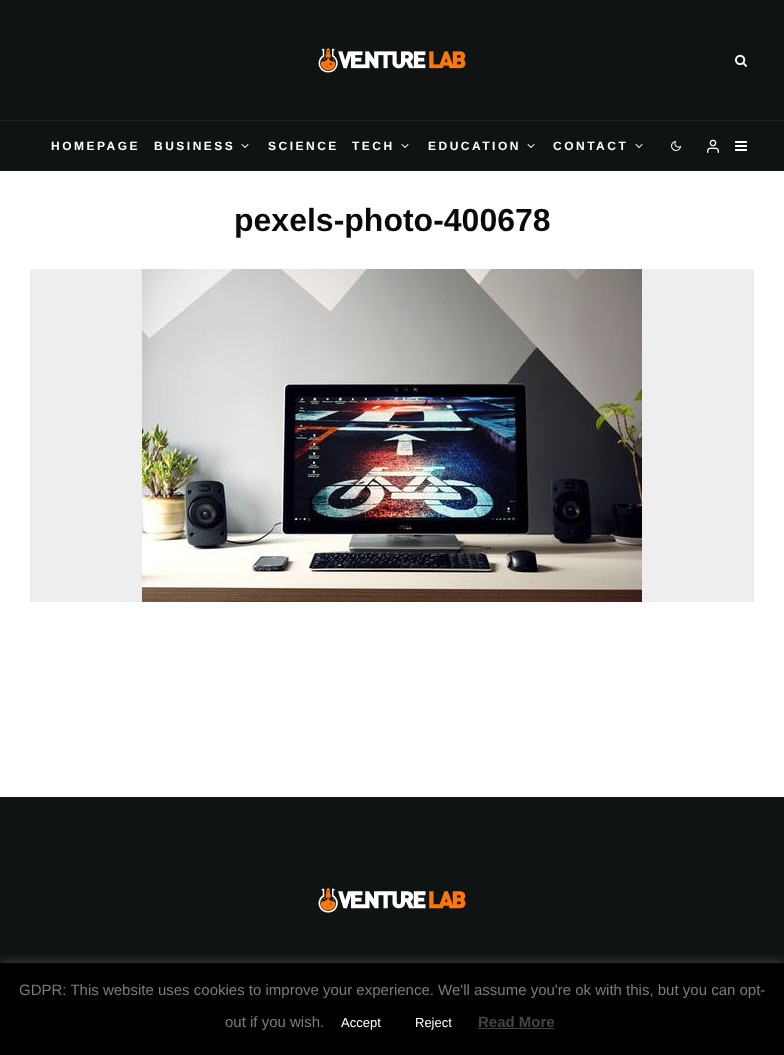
<svg xmlns="http://www.w3.org/2000/svg" width="784" height="1055" viewBox="0 0 784 1055">
  <rect width="100%" height="100%" fill="rgb(255,255,255)"/>
  <rect x="0" y="0" width="784" height="120" fill="rgb(16,19,20)"/>
  <image x="318" y="47" width="148" height="26" href="pic1.png"/>
  <image x="735" y="54" width="12" height="13" href="pic2.png"/>
  <rect x="0" y="121" width="784" height="50" fill="rgb(16,19,20)"/>
  <rect x="0" y="120" width="784" height="1" fill="rgb(35,35,35)"/>
  <g font-family="Liberation Sans" font-size="12" font-weight="bold" letter-spacing="2.5" fill="rgb(255,255,255)">
    <text x="51" y="150">HOMEPAGE</text>
    <text x="154" y="150">BUSINESS</text>
  </g>
  <image x="241" y="144" width="8" height="4" href="pic3.png"/>
  <g font-family="Liberation Sans" font-size="12" font-weight="bold" letter-spacing="2.5" fill="rgb(255,255,255)">
    <text x="268" y="150">SCIENCE</text>
    <text x="352" y="150">TECH</text>
  </g>
  <image x="401" y="144" width="8" height="4" href="pic3.png"/>
  <text x="428" y="150" font-family="Liberation Sans" font-size="12" font-weight="bold" letter-spacing="2.5" fill="rgb(255,255,255)">EDUCATION</text>
  <image x="527" y="144" width="8" height="4" href="pic3.png"/>
  <text x="553" y="150" font-family="Liberation Sans" font-size="12" font-weight="bold" letter-spacing="2.5" fill="rgb(255,255,255)">CONTACT</text>
  <image x="635" y="144" width="8" height="4" href="pic3.png"/>
  <image x="671" y="141" width="10" height="10" href="pic4.png"/>
  <image x="707" y="139" width="12" height="14" href="pic5.png"/>
  <image x="735" y="141" width="12" height="10" href="pic6.png"/>
  <text x="234" y="231" font-family="Liberation Sans" font-size="32" font-weight="bold" fill="rgb(10,10,10)">pexels-photo-400678</text>
  <rect x="30" y="269" width="724" height="333" fill="rgb(238,238,238)"/>
  <image x="142" y="269" width="500" height="333" href="pic7.png"/>
  <rect x="0" y="797" width="784" height="166" fill="rgb(16,19,20)"/>
  <image x="318" y="887" width="148" height="26" href="pic8.png"/>
  <rect x="0" y="962" width="784" height="92" fill="rgba(172,171,171,0.3)" filter="blur(5px)"/>
  <rect x="0" y="963" width="784" height="92" fill="rgb(0,0,0)"/>
  <g font-family="Liberation Sans" font-size="15" fill="rgb(124,124,124)">
    <text x="19" y="995">GDPR: This website uses cookies to improve your experience. We'll assume you're ok with this, but you can opt-</text>
    <text x="225" y="1027">out if you wish.</text>
  </g>
  <g font-family="Liberation Sans" font-size="13" fill="rgb(255,255,255)">
    <text x="341" y="1027">Accept</text>
    <text x="415" y="1027">Reject</text>
  </g>
  <text x="478" y="1027" font-family="Liberation Sans" font-size="15" font-weight="bold" fill="rgb(68,68,68)">Read More</text>
  <rect x="478" y="1028" width="76" height="1" fill="rgb(68,68,68)"/>
</svg>
